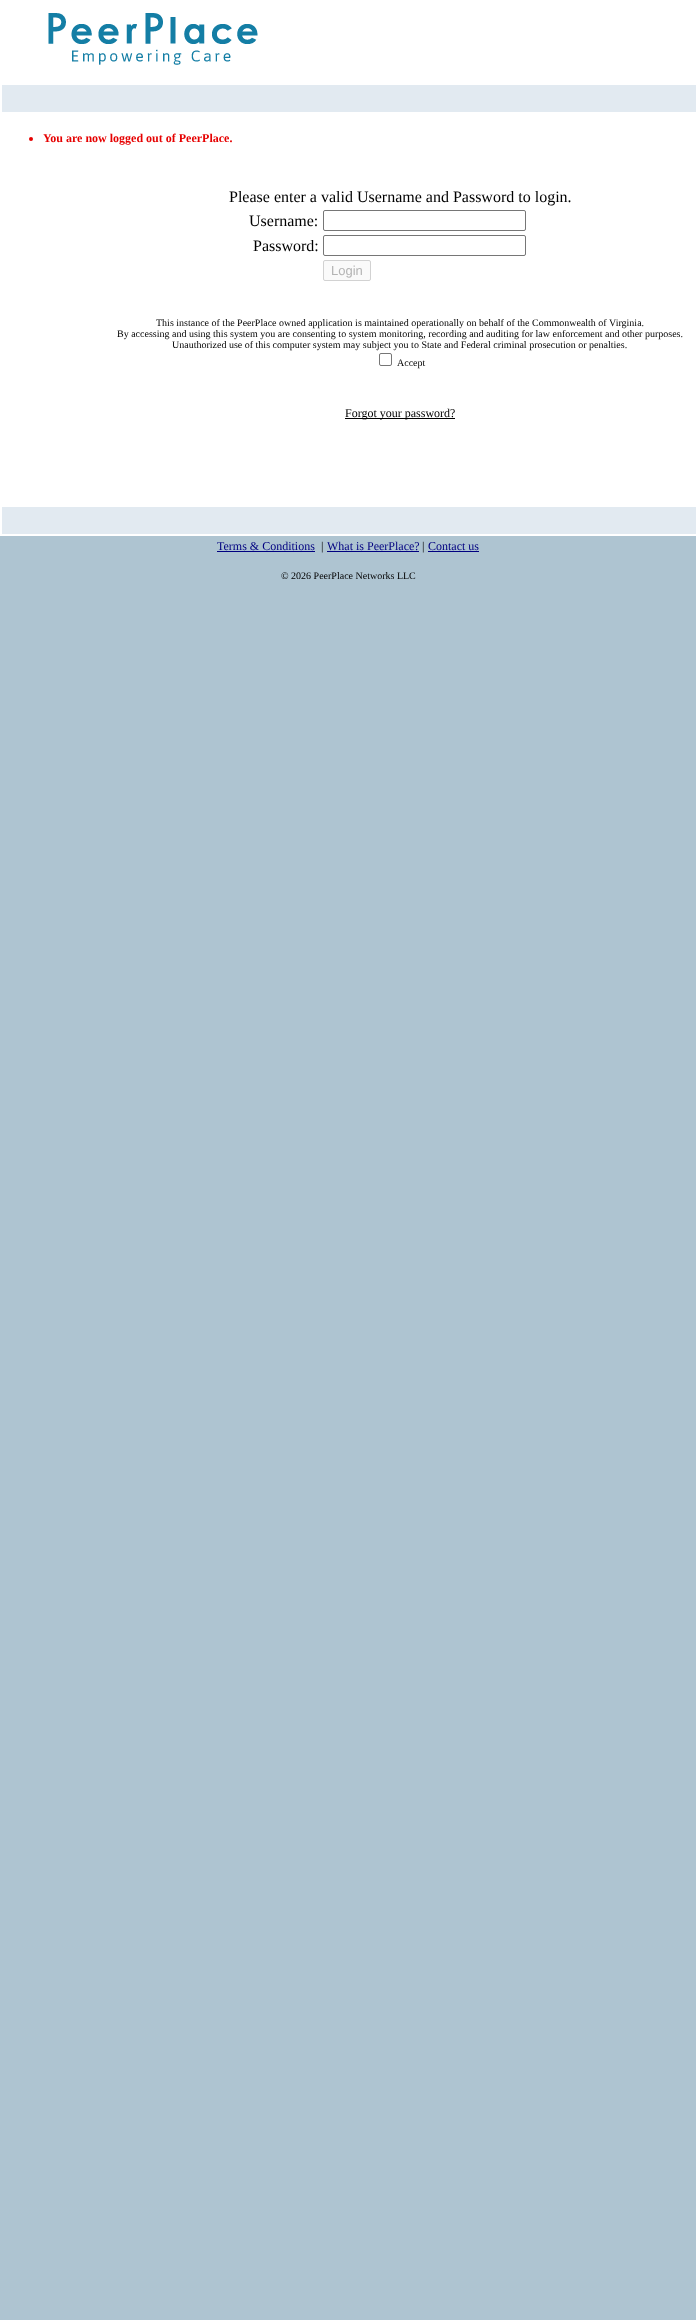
<svg xmlns="http://www.w3.org/2000/svg" width="696" height="2320" viewBox="0 0 696 2320">
  <rect width="100%" height="100%" fill="rgb(174,196,209)"/>
  <rect x="0" y="0" width="696" height="536" fill="rgb(255,255,255)"/>
  <image x="48" y="13" width="210" height="52" href="pic1.png"/>
  <rect x="2" y="85" width="694" height="27" fill="rgb(226,234,241)"/>
  <circle cx="31" cy="139" r="2" fill="rgb(230,0,0)"/>
  <text x="43" y="142" font-family="Liberation Serif" font-size="12" font-weight="bold" fill="rgb(230,0,0)">You are now logged out of PeerPlace.</text>
  <g font-family="Liberation Serif" font-size="16" fill="rgb(0,0,0)">
    <text x="229" y="202">Please enter a valid Username and Password to login.</text>
    <text x="249" y="226">Username:</text>
  </g>
  <rect x="323.5" y="210.5" width="202" height="20" rx="1.5" fill="none" stroke="rgb(118,118,118)"/>
  <text x="253" y="251" font-family="Liberation Serif" font-size="16" fill="rgb(0,0,0)">Password:</text>
  <rect x="323.5" y="235.5" width="202" height="20" rx="1.5" fill="none" stroke="rgb(118,118,118)"/>
  <rect x="323.5" y="260.5" width="47" height="20" rx="1.5" fill="rgb(250,250,250)" stroke="rgb(210,210,210)"/>
  <text x="331" y="275" font-family="Liberation Sans" font-size="13" fill="rgb(180,180,180)">Login</text>
  <g font-family="Liberation Serif" font-size="10" fill="rgb(0,0,0)">
    <text x="156" y="326">This instance of the PeerPlace owned application is maintained operationally on behalf of the Commonwealth of Virginia.</text>
    <text x="117" y="337">By accessing and using this system you are consenting to system monitoring, recording and auditing for law enforcement and other purposes.</text>
    <text x="172" y="348">Unauthorized use of this computer system may subject you to State and Federal criminal prosecution or penalties.</text>
  </g>
  <rect x="379.5" y="353.5" width="12" height="12" rx="1.5" fill="none" stroke="rgb(118,118,118)"/>
  <text x="397" y="366" font-family="Liberation Serif" font-size="10" fill="rgb(0,0,0)">Accept</text>
  <rect x="345" y="418" width="110" height="1" fill="rgb(0,0,0)"/>
  <text x="345" y="417" font-family="Liberation Serif" font-size="12" fill="rgb(0,0,0)">Forgot your password?</text>
  <rect x="2" y="507" width="694" height="27" fill="rgb(226,234,241)"/>
  <text x="217" y="550" font-family="Liberation Serif" font-size="12" fill="rgb(0,0,128)">Terms &amp; Conditions</text>
  <rect x="217" y="551" width="98" height="1" fill="rgb(0,0,128)"/>
  <text x="321" y="550" font-family="Liberation Serif" font-size="12" fill="rgb(0,0,0)">|</text>
  <text x="327" y="550" font-family="Liberation Serif" font-size="12" fill="rgb(0,0,128)">What is PeerPlace?</text>
  <rect x="327" y="551" width="92" height="1" fill="rgb(0,0,128)"/>
  <text x="422" y="550" font-family="Liberation Serif" font-size="12" fill="rgb(0,0,0)">|</text>
  <text x="428" y="550" font-family="Liberation Serif" font-size="12" fill="rgb(0,0,128)">Contact us</text>
  <rect x="428" y="551" width="51" height="1" fill="rgb(0,0,128)"/>
  <text x="281" y="579" font-family="Liberation Serif" font-size="10" fill="rgb(0,0,0)">© 2026 PeerPlace Networks LLC</text>
</svg>
